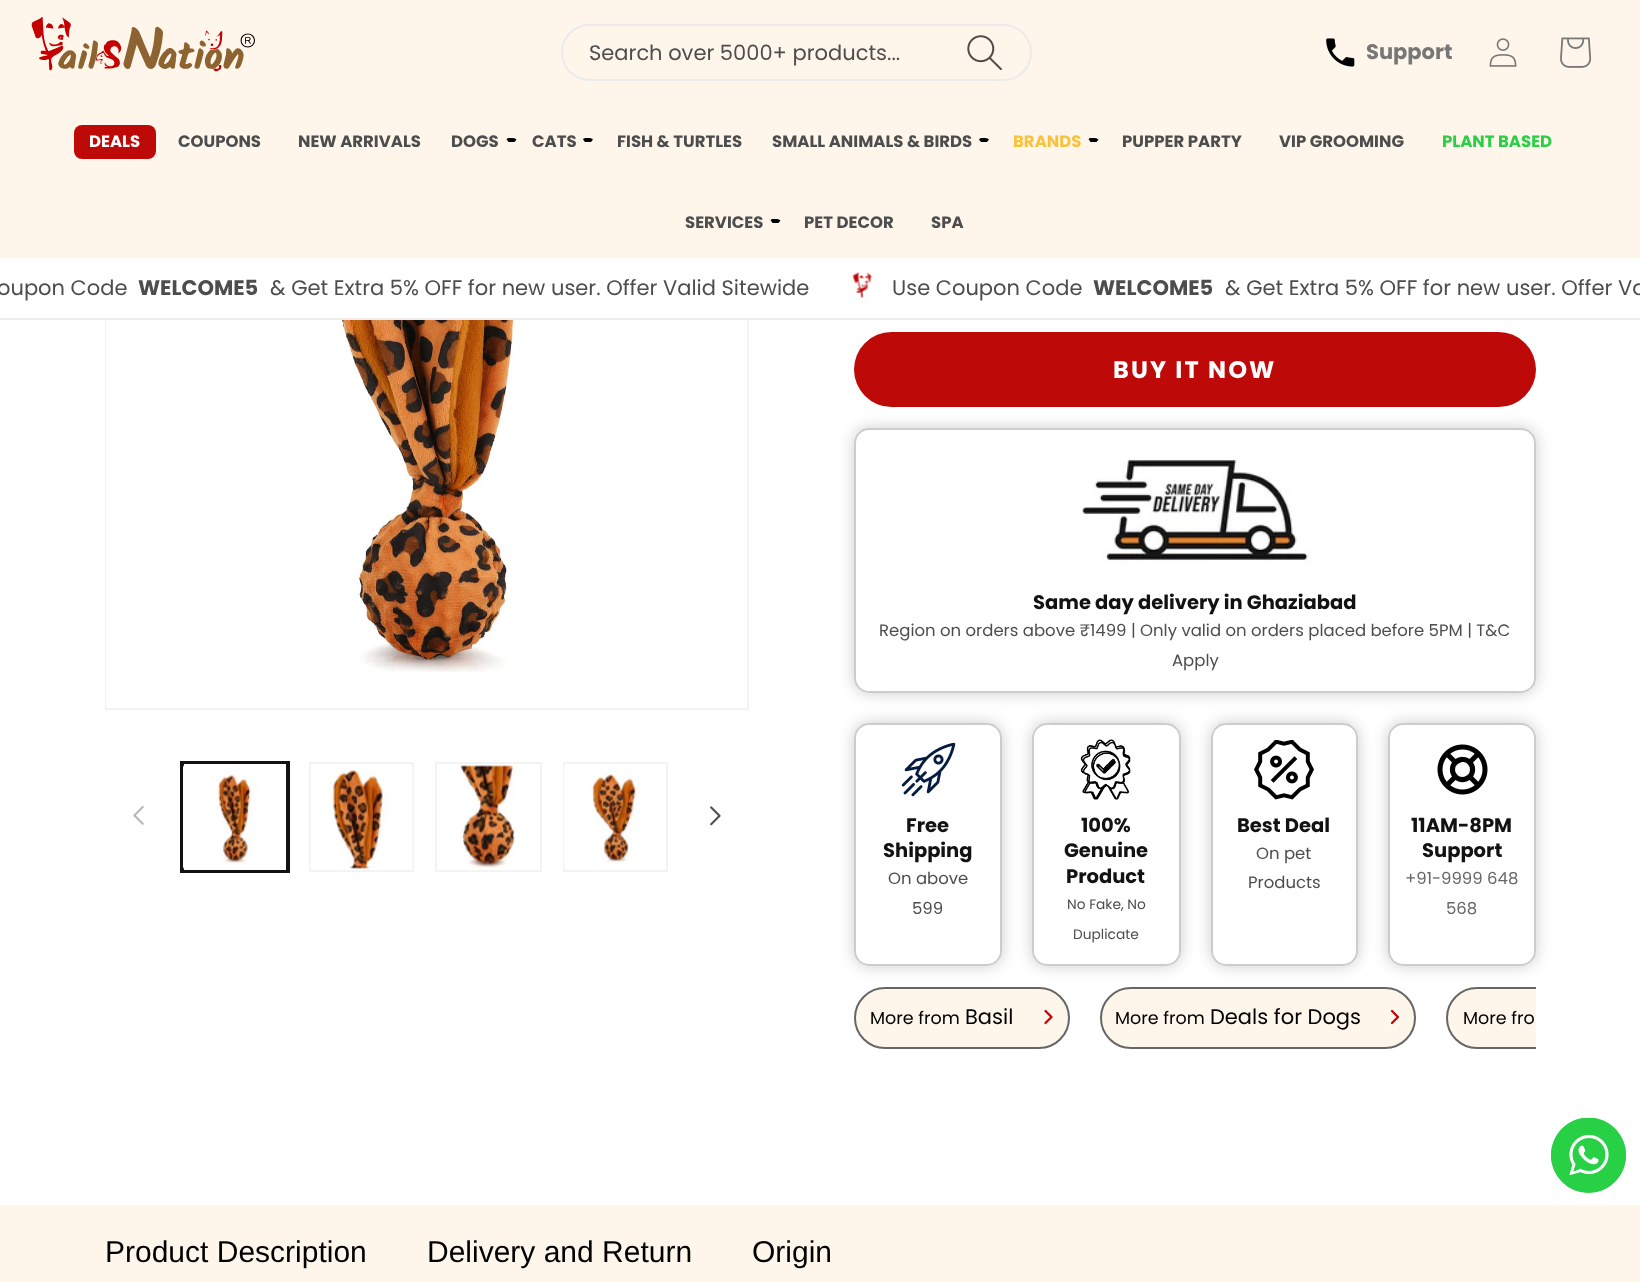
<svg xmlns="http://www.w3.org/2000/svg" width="1640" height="1282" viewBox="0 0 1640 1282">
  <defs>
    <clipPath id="clip1"><path d="M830 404H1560V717H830ZM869 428H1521C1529.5 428 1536 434.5 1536 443V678C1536 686.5 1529.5 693 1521 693H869C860.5 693 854 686.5 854 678V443C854 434.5 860.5 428 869 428Z" clip-rule="evenodd"/></clipPath>
    <clipPath id="clip2"><path d="M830 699H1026V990H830ZM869 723H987C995.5 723 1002 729.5 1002 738V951C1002 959.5 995.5 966 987 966H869C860.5 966 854 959.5 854 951V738C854 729.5 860.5 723 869 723Z" clip-rule="evenodd"/></clipPath>
    <clipPath id="clip3"><path d="M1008 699H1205V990H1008ZM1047 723H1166C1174.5 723 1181 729.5 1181 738V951C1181 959.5 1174.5 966 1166 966H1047C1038.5 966 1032 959.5 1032 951V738C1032 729.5 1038.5 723 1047 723Z" clip-rule="evenodd"/></clipPath>
    <clipPath id="clip4"><path d="M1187 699H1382V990H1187ZM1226 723H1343C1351.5 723 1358 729.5 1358 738V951C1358 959.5 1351.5 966 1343 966H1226C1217.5 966 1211 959.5 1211 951V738C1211 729.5 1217.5 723 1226 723Z" clip-rule="evenodd"/></clipPath>
    <clipPath id="clip5"><path d="M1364 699H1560V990H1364ZM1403 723H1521C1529.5 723 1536 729.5 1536 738V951C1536 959.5 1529.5 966 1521 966H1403C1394.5 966 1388 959.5 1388 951V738C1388 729.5 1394.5 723 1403 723Z" clip-rule="evenodd"/></clipPath>
    <clipPath id="clip6"><rect x="854" y="987" width="682" height="62"/></clipPath>
  </defs>
  <rect width="100%" height="100%" fill="rgb(255,255,255)"/>
  <rect x="106" y="64" width="642" height="645" fill="none" stroke="rgb(243,243,243)" stroke-width="2"/>
  <rect x="105" y="258" width="644" height="60" fill="rgb(255,255,255)"/>
  <rect x="0" y="318" width="1640" height="2" fill="rgb(236,236,236)"/>
  <rect x="0" y="0" width="1640" height="258" fill="rgb(255,246,235)"/>
  <image x="31" y="17" width="224" height="55" href="pic1.png"/>
  <rect x="562" y="25" width="469" height="55" rx="27.5" fill="none" stroke="rgb(235,235,235)" stroke-width="2"/>
  <text x="589" y="60" font-family="Poppins" font-size="21" fill="rgb(77,77,77)">Search over 5000+ products...</text>
  <image x="967" y="35" width="35" height="36" href="pic2.png"/>
  <image x="1326" y="38" width="29" height="29" href="pic3.png"/>
  <text x="1366" y="59" font-family="Poppins" font-size="21" font-weight="bold" fill="rgb(119,119,119)">Support</text>
  <image x="1489" y="38" width="28" height="29" href="pic4.png"/>
  <image x="1560" y="37" width="32" height="31" href="pic5.png"/>
  <rect x="74" y="125" width="82" height="34" rx="8" fill="rgb(190,9,9)"/>
  <text x="89" y="147" font-family="Poppins" font-size="16.5" font-weight="bold" fill="rgb(255,255,255)">DEALS</text>
  <g font-family="Poppins" font-size="16.5" font-weight="bold" fill="rgb(77,77,77)">
    <text x="178" y="147">COUPONS</text>
    <text x="298" y="147">NEW ARRIVALS</text>
    <text x="451" y="147">DOGS</text>
  </g>
  <path d="M509 138C511.5 138 514.5 137.5 516.5 139.5L514.5 142H508.5L506.5 139C507 138.5 508 138 509 138Z" fill="rgb(0,0,0)"/>
  <text x="532" y="147" font-family="Poppins" font-size="16.5" font-weight="bold" fill="rgb(77,77,77)">CATS</text>
  <path d="M586 138C588.5 138 591 137.5 593 139.5L591 142H585L583 139.5C583.5 138.5 584.5 138 586 138Z" fill="rgb(0,0,0)"/>
  <g font-family="Poppins" font-size="16.5" font-weight="bold" fill="rgb(77,77,77)">
    <text x="617" y="147">FISH &amp; TURTLES</text>
    <text x="772" y="147">SMALL ANIMALS &amp; BIRDS</text>
  </g>
  <path d="M982 138C984.5 138 987 137.5 989 139.5L987 142H981L979 139.5C979.5 138.5 980.5 138 982 138Z" fill="rgb(0,0,0)"/>
  <text x="1013" y="147" font-family="Poppins" font-size="16.5" font-weight="bold" fill="rgb(249,194,60)">BRANDS</text>
  <path d="M1091 138C1093.5 138 1096.5 137.5 1098.5 139.5L1096.5 142H1090.5L1088.5 139C1089 138.5 1090 138 1091 138Z" fill="rgb(0,0,0)"/>
  <g font-family="Poppins" font-size="16.5" font-weight="bold" fill="rgb(77,77,77)">
    <text x="1122" y="147">PUPPER PARTY</text>
    <text x="1279" y="147">VIP GROOMING</text>
  </g>
  <text x="1442" y="147" font-family="Poppins" font-size="16.5" font-weight="bold" fill="rgb(39,208,69)">PLANT BASED</text>
  <text x="685" y="228" font-family="Poppins" font-size="16.5" font-weight="bold" fill="rgb(77,77,77)">SERVICES</text>
  <path d="M773 219C775.5 219 778.5 218.5 780.5 220.5L778.5 223H772.5L770.5 220C771 219.5 772 219 773 219Z" fill="rgb(0,0,0)"/>
  <g font-family="Poppins" font-size="16.5" font-weight="bold" fill="rgb(77,77,77)">
    <text x="804" y="228">PET DECOR</text>
    <text x="931" y="228">SPA</text>
  </g>
  <text x="-3" y="295" font-family="Poppins" font-size="21" fill="rgb(77,77,77)">oupon Code</text>
  <text x="138" y="295" font-family="Poppins" font-size="21" font-weight="bold" fill="rgb(77,77,77)">WELCOME5</text>
  <text x="270" y="295" font-family="Poppins" font-size="21" fill="rgb(77,77,77)">&amp; Get Extra 5% OFF for new user. Offer Valid Sitewide</text>
  <image x="852" y="272" width="20" height="27" href="pic6.png"/>
  <text x="892" y="295" font-family="Poppins" font-size="21" fill="rgb(77,77,77)">Use Coupon Code</text>
  <text x="1093" y="295" font-family="Poppins" font-size="21" font-weight="bold" fill="rgb(77,77,77)">WELCOME5</text>
  <text x="1225" y="295" font-family="Poppins" font-size="21" fill="rgb(77,77,77)">&amp; Get Extra 5% OFF for new user. Offer Va</text>
  <image x="106" y="320" width="416" height="387" href="pic7.png"/>
  <image x="133" y="806" width="11" height="19" href="pic8.png"/>
  <rect x="181" y="762" width="108" height="110" fill="none" stroke="rgb(18,18,18)" stroke-width="2"/>
  <rect x="183" y="763" width="104" height="108" fill="none" stroke="rgb(18,18,18)" stroke-width="2"/>
  <image x="183" y="765" width="104" height="104" href="pic9.png"/>
  <rect x="310" y="763" width="103" height="108" fill="none" stroke="rgb(243,243,243)" stroke-width="2"/>
  <image x="310" y="766" width="103" height="103" href="pic10.png"/>
  <rect x="436" y="763" width="105" height="108" fill="none" stroke="rgb(243,243,243)" stroke-width="2"/>
  <image x="457" y="765" width="58" height="103" href="pic11.png"/>
  <rect x="564" y="763" width="103" height="108" fill="none" stroke="rgb(243,243,243)" stroke-width="2"/>
  <image x="564" y="766" width="78" height="102" href="pic12.png"/>
  <image x="710" y="806" width="11" height="20" href="pic13.png"/>
  <g clip-path="url(#clip1)">
    <rect x="854" y="428" width="682" height="265" rx="15" fill="rgba(0,0,0,0.2)" filter="blur(7.5px)"/>
  </g>
  <rect x="854" y="332" width="682" height="75" rx="37.5" fill="rgb(190,9,9)"/>
  <text x="1113" y="378" font-family="Poppins" font-size="24" font-weight="bold" letter-spacing="2.1" fill="rgb(255,255,255)">BUY IT NOW</text>
  <rect x="855" y="429" width="680" height="263" rx="14" fill="none" stroke="rgb(204,204,204)" stroke-width="2"/>
  <image x="1082" y="459" width="229" height="105" href="pic14.png"/>
  <text x="1033" y="609" font-family="Poppins" font-size="19.5" font-weight="bold" fill="rgb(18,18,18)">Same day delivery in Ghaziabad</text>
  <g font-family="Poppins" font-size="16.5" fill="rgb(77,77,77)">
    <text x="879" y="636">Region on orders above ₹1499 | Only valid on orders placed before 5PM | T&amp;C</text>
    <text x="1172" y="666">Apply</text>
  </g>
  <g clip-path="url(#clip2)">
    <rect x="854" y="723" width="148" height="243" rx="15" fill="rgba(0,0,0,0.2)" filter="blur(7.5px)"/>
  </g>
  <rect x="855" y="724" width="146" height="241" rx="14" fill="none" stroke="rgb(204,204,204)" stroke-width="2"/>
  <image x="901" y="742" width="55" height="55" href="pic15.png"/>
  <g font-family="Poppins" font-size="19.5" font-weight="bold" fill="rgb(18,18,18)">
    <text x="906" y="832">Free</text>
    <text x="883" y="857">Shipping</text>
  </g>
  <g font-family="Poppins" font-size="16.5" fill="rgb(77,77,77)">
    <text x="888" y="884">On above</text>
    <text x="912" y="914">599</text>
  </g>
  <g clip-path="url(#clip3)">
    <rect x="1032" y="723" width="149" height="243" rx="15" fill="rgba(0,0,0,0.2)" filter="blur(7.5px)"/>
  </g>
  <rect x="1033" y="724" width="147" height="241" rx="14" fill="none" stroke="rgb(204,204,204)" stroke-width="2"/>
  <image x="1080" y="739" width="51" height="61" href="pic16.png"/>
  <g font-family="Poppins" font-size="19.5" font-weight="bold" fill="rgb(18,18,18)">
    <text x="1081" y="832">100%</text>
    <text x="1064" y="857">Genuine</text>
    <text x="1066" y="883">Product</text>
  </g>
  <g font-family="Poppins" font-size="13.75" fill="rgb(77,77,77)">
    <text x="1067" y="909">No Fake, No</text>
    <text x="1073" y="939">Duplicate</text>
  </g>
  <g clip-path="url(#clip4)">
    <rect x="1211" y="723" width="147" height="243" rx="15" fill="rgba(0,0,0,0.2)" filter="blur(7.5px)"/>
  </g>
  <rect x="1212" y="724" width="145" height="241" rx="14" fill="none" stroke="rgb(204,204,204)" stroke-width="2"/>
  <image x="1254" y="740" width="60" height="60" href="pic17.png"/>
  <text x="1237" y="832" font-family="Poppins" font-size="19.5" font-weight="bold" fill="rgb(18,18,18)">Best Deal</text>
  <g font-family="Poppins" font-size="16.5" fill="rgb(77,77,77)">
    <text x="1256" y="859">On pet</text>
    <text x="1248" y="888">Products</text>
  </g>
  <g clip-path="url(#clip5)">
    <rect x="1388" y="723" width="148" height="243" rx="15" fill="rgba(0,0,0,0.2)" filter="blur(7.5px)"/>
  </g>
  <rect x="1389" y="724" width="146" height="241" rx="14" fill="none" stroke="rgb(204,204,204)" stroke-width="2"/>
  <image x="1437" y="744" width="51" height="51" href="pic18.png"/>
  <g font-family="Poppins" font-size="19.5" font-weight="bold" fill="rgb(18,18,18)">
    <text x="1411" y="832">11AM-8PM</text>
    <text x="1422" y="857">Support</text>
  </g>
  <g font-family="Poppins" font-size="16.5" fill="rgb(102,102,102)">
    <text x="1405" y="884">+91-9999 648</text>
    <text x="1446" y="914">568</text>
  </g>
  <rect x="855" y="988" width="214" height="60" rx="30" fill="rgb(255,246,235)" stroke="rgb(102,102,102)" stroke-width="2"/>
  <text x="870" y="1024" font-family="Poppins" font-size="17.5" fill="rgb(0,0,0)">More from</text>
  <text x="965" y="1024" font-family="Poppins" font-size="21" fill="rgb(0,0,0)">Basil</text>
  <path d="M1045.5 1023L1051.5 1017L1045.5 1011" fill="none" stroke="rgb(196,0,0)" stroke-width="2.2" stroke-linecap="round" stroke-linejoin="round"/>
  <rect x="1101" y="988" width="314" height="60" rx="30" fill="rgb(255,246,235)" stroke="rgb(102,102,102)" stroke-width="2"/>
  <text x="1115" y="1024" font-family="Poppins" font-size="17.5" fill="rgb(0,0,0)">More from</text>
  <text x="1210" y="1024" font-family="Poppins" font-size="21" fill="rgb(0,0,0)">Deals for Dogs</text>
  <path d="M1392 1023L1398 1017L1392 1011" fill="none" stroke="rgb(196,0,0)" stroke-width="2.2" stroke-linecap="round" stroke-linejoin="round"/>
  <path d="M1477 987H1536V1049H1477C1460 1049 1446 1035 1446 1018C1446 1001 1460 987 1477 987Z" fill="rgb(255,246,235)"/>
  <g clip-path="url(#clip6)">
    <rect x="1447" y="988" width="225" height="60" rx="30" fill="none" stroke="rgb(102,102,102)" stroke-width="2"/>
  </g>
  <text x="1463" y="1024" font-family="Poppins" font-size="17.5" fill="rgb(0,0,0)">More fro</text>
  <rect x="0" y="1205" width="1640" height="77" fill="rgb(255,246,235)"/>
  <g font-family="Liberation Sans" font-size="30" fill="rgb(0,0,0)">
    <text x="105" y="1262">Product Description</text>
    <text x="427" y="1262">Delivery and Return</text>
    <text x="752" y="1262">Origin</text>
  </g>
  <circle cx="1588.5" cy="1155.5" r="37.5" fill="rgb(71,200,87)"/>
  <image x="1551" y="1118" width="75" height="75" href="pic19.png"/>
</svg>
